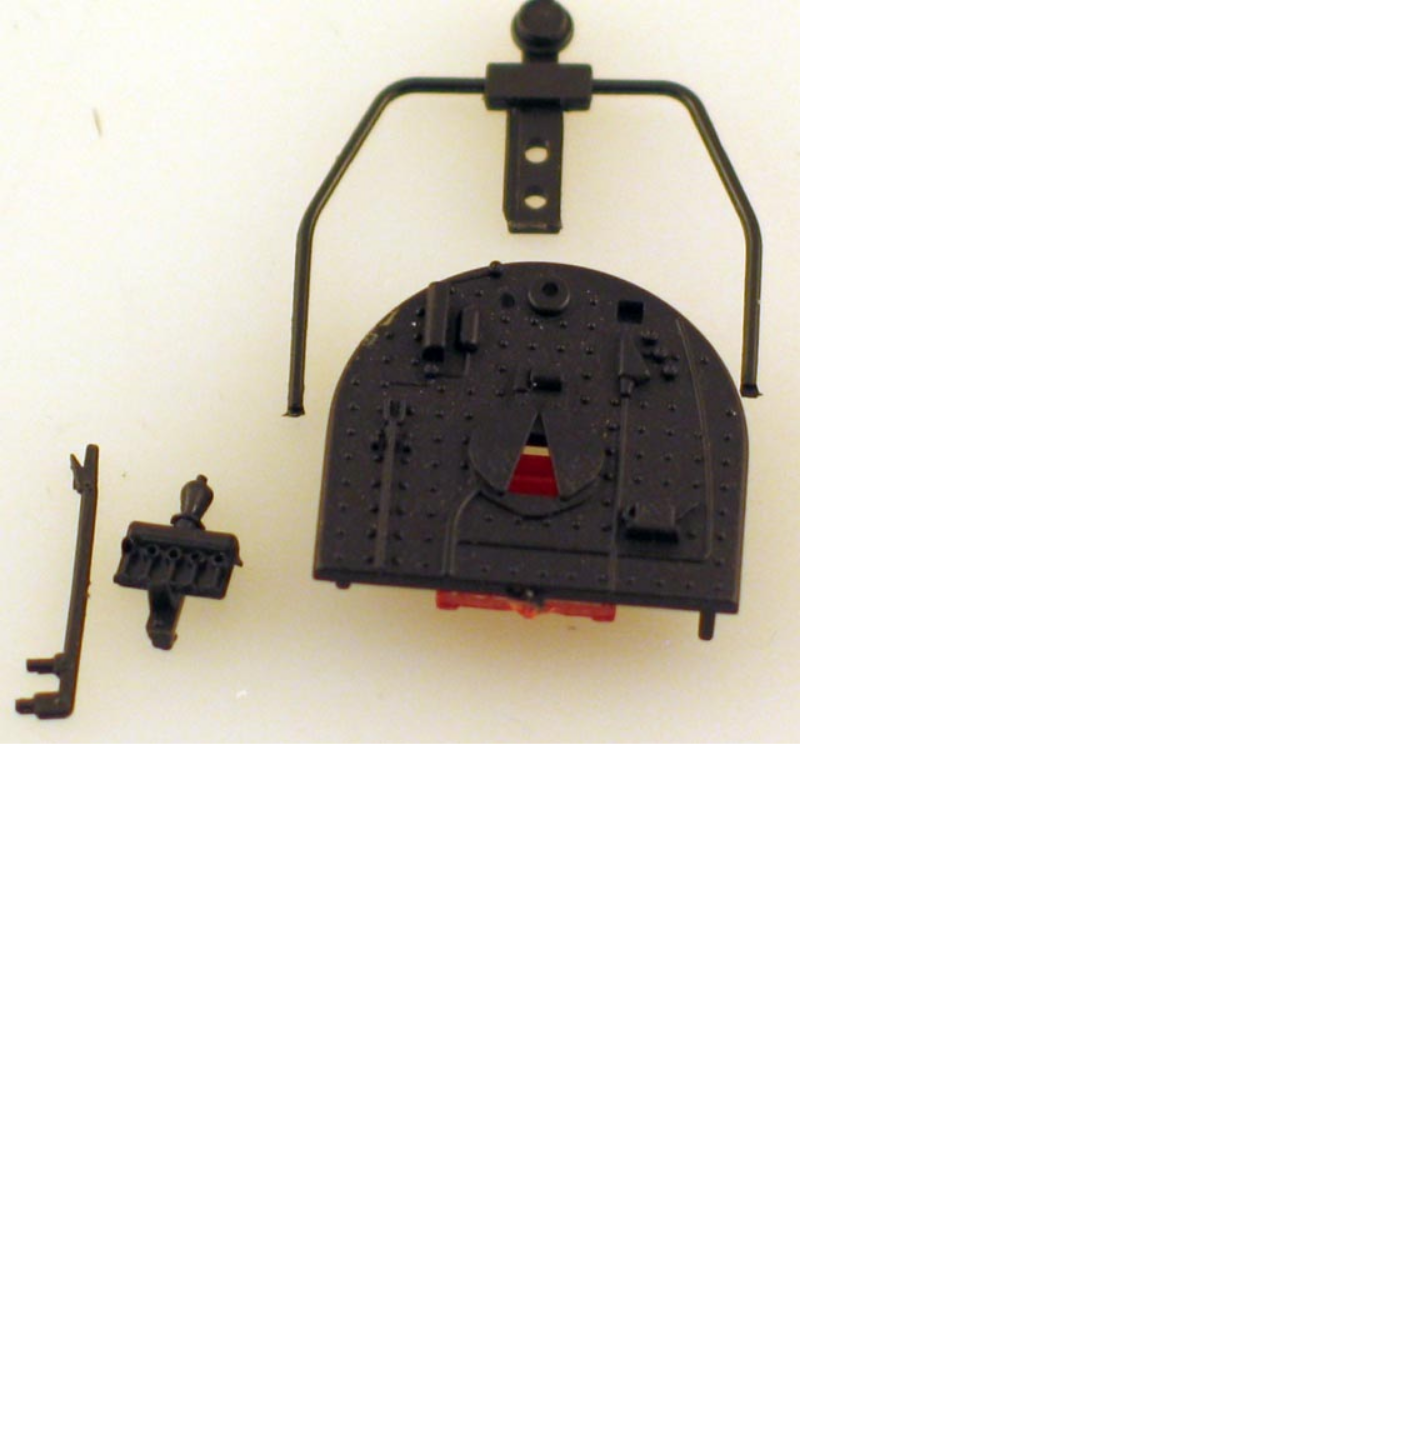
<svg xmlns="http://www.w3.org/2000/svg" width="1422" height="1435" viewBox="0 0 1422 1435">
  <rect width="100%" height="100%" fill="rgb(255,255,255)"/>
  <image x="0" y="0" width="800" height="744" href="pic1.png"/>
</svg>
